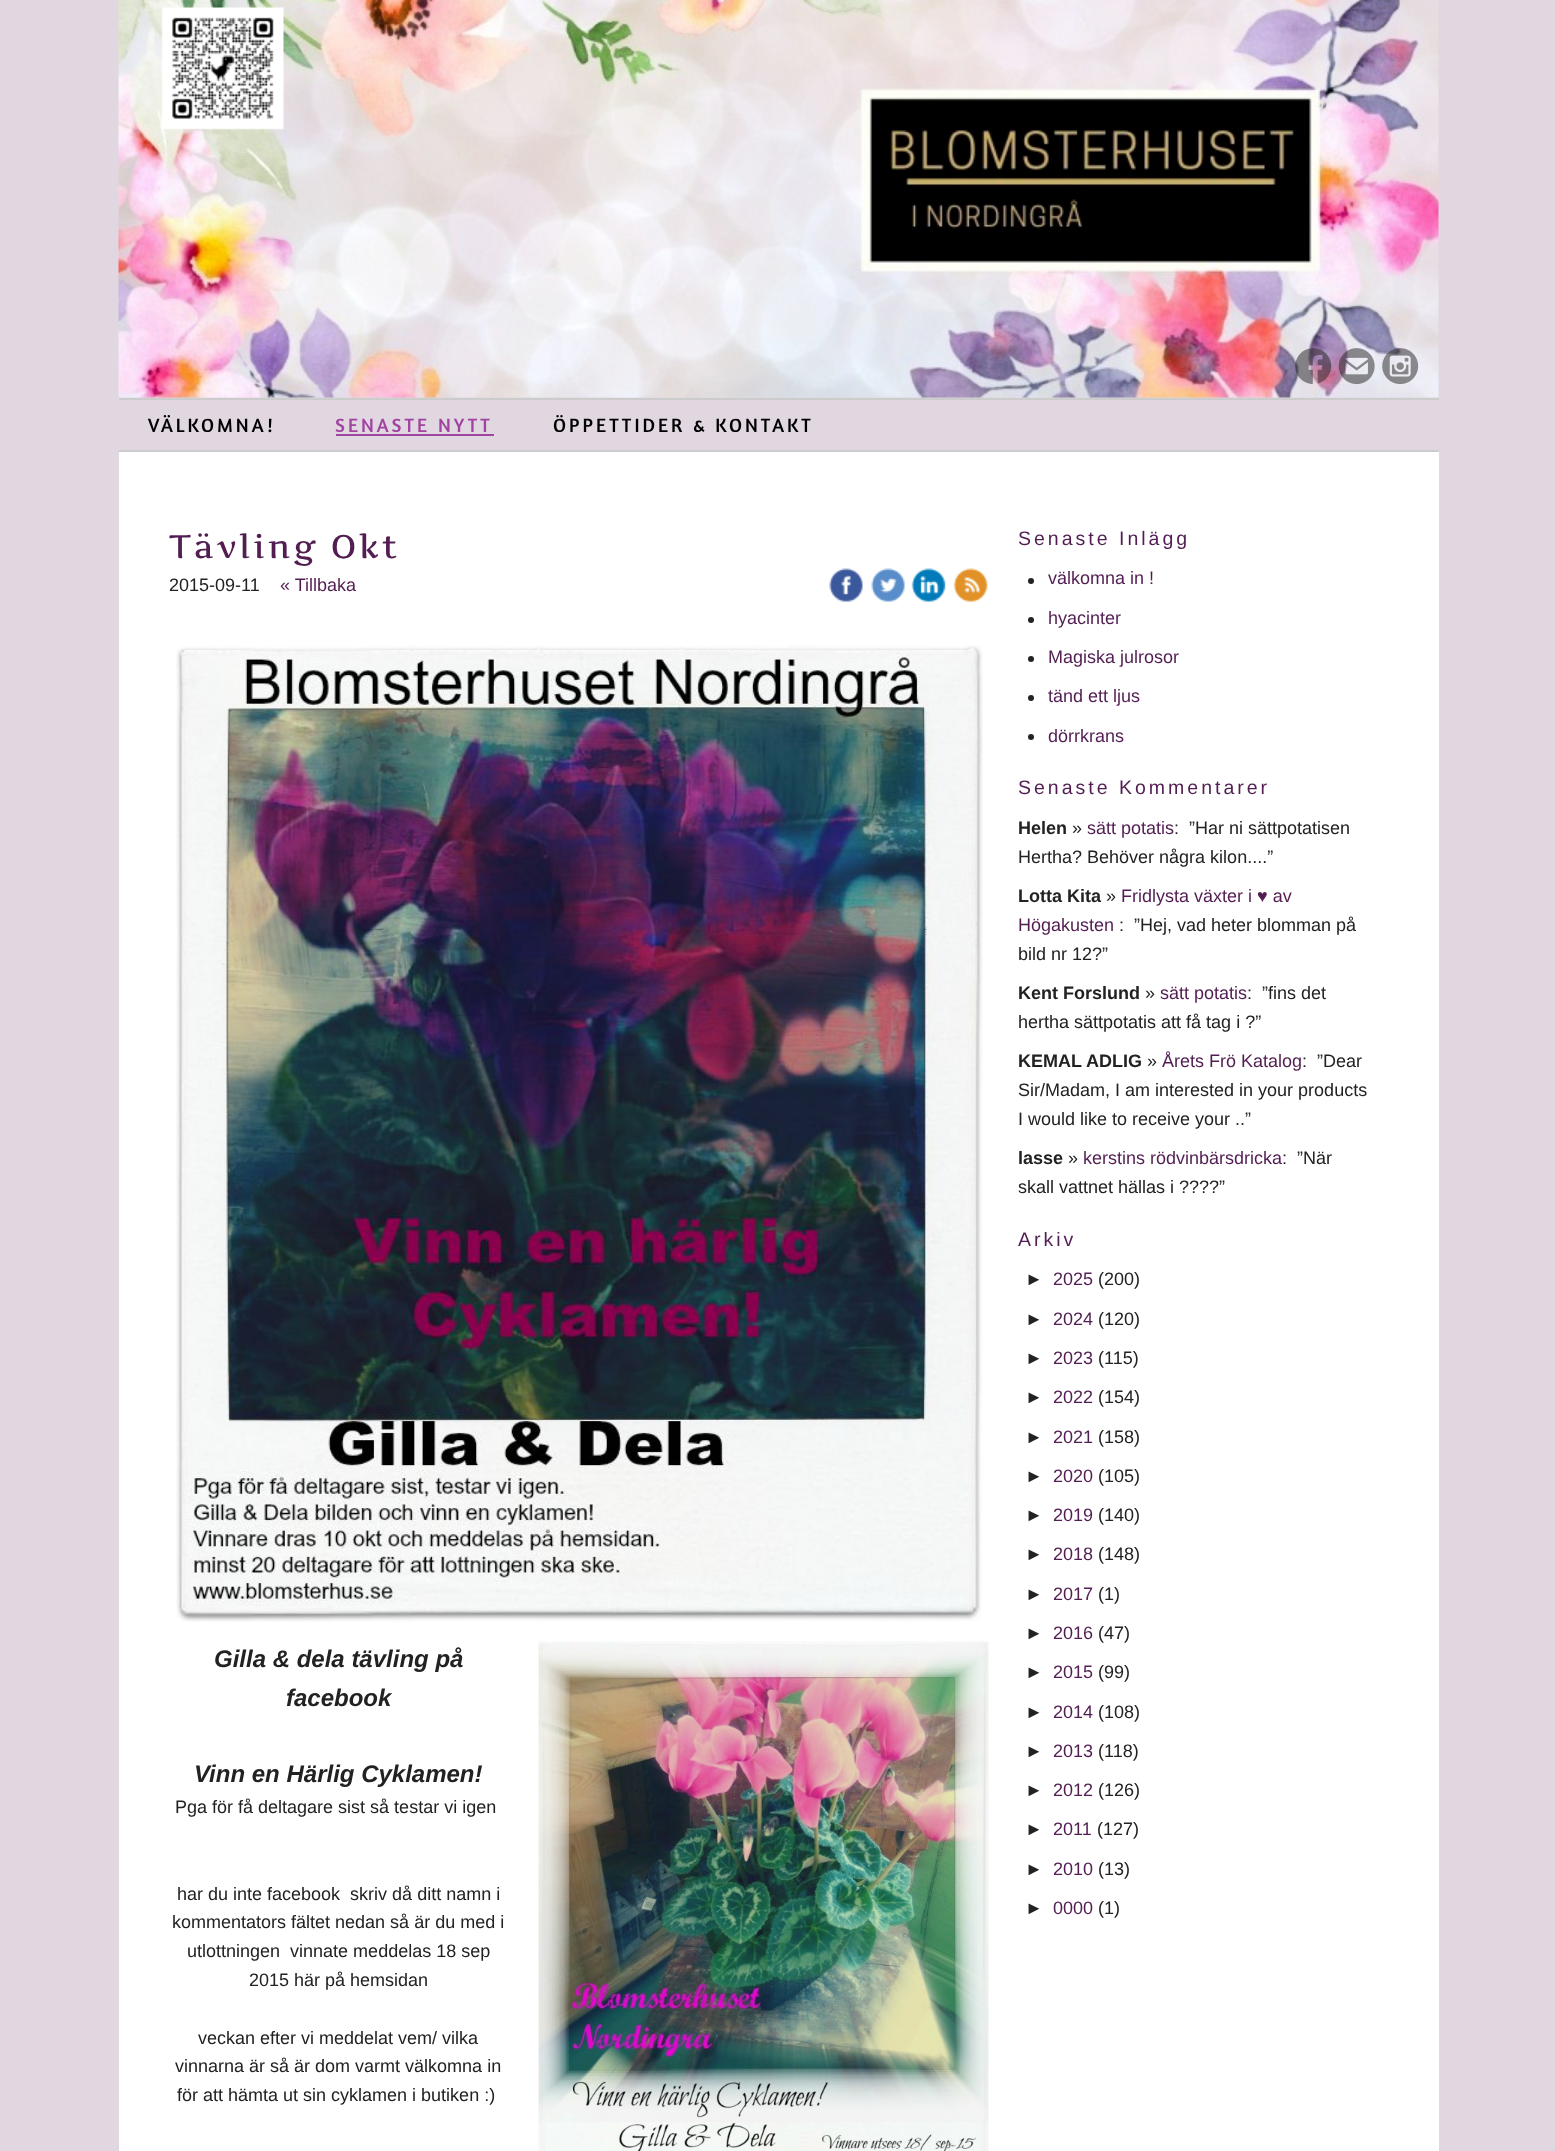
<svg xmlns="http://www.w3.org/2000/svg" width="1555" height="2151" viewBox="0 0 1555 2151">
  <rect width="100%" height="100%" fill="rgb(224,215,224)"/>
  <image x="118" y="0" width="1321" height="398" href="pic1.png"/>
  <image x="1295" y="348" width="37" height="36" href="pic2.png"/>
  <image x="1338" y="348" width="37" height="37" href="pic3.png"/>
  <image x="1382" y="348" width="37" height="36" href="pic4.png"/>
  <rect x="119" y="398" width="1320" height="2" fill="rgb(204,204,204)"/>
  <rect x="119" y="450" width="1320" height="2" fill="rgb(204,204,204)"/>
  <text x="148" y="432" font-family="Amaranth" font-size="19.5" letter-spacing="3" fill="rgb(0,0,0)">VÄLKOMNA!</text>
  <text x="335" y="432" font-family="Amaranth" font-size="19.5" letter-spacing="3" fill="rgb(161,68,161)">SENASTE NYTT</text>
  <rect x="336" y="434" width="158" height="2" fill="rgb(161,68,161)"/>
  <text x="553" y="432" font-family="Amaranth" font-size="19.5" letter-spacing="3" fill="rgb(0,0,0)">ÖPPETTIDER &amp; KONTAKT</text>
  <rect x="119" y="452" width="1320" height="1699" fill="rgb(255,255,255)"/>
  <text x="169" y="558" font-family="Artifika" font-size="33" font-weight="500" letter-spacing="3" fill="rgb(82,30,82)">Tävling Okt</text>
  <text x="169" y="591" font-family="Liberation Sans" font-size="18" fill="rgb(34,34,34)">2015-09-11</text>
  <text x="280" y="591" font-family="Liberation Sans" font-size="18" fill="rgb(82,30,82)">« Tillbaka</text>
  <image x="829" y="568" width="34" height="34" href="pic5.png"/>
  <image x="871" y="568" width="34" height="34" href="pic6.png"/>
  <image x="911" y="568" width="35" height="34" href="pic7.png"/>
  <image x="953" y="568" width="35" height="34" href="pic8.png"/>
  <image x="176" y="645" width="807" height="977" href="pic9.png"/>
  <g font-family="Liberation Sans" font-size="24" font-weight="bold" font-style="italic" fill="rgb(34,34,34)">
    <text x="214" y="1667">Gilla &amp; dela tävling på</text>
    <text x="286" y="1706">facebook</text>
    <text x="194" y="1782">Vinn en Härlig Cyklamen!</text>
  </g>
  <g font-family="Liberation Sans" font-size="18" fill="rgb(34,34,34)">
    <text x="175" y="1813">Pga för få deltagare sist så testar vi igen</text>
    <text x="177" y="1900" xml:space="preserve">har du inte facebook  skriv då ditt namn i</text>
    <text x="172" y="1928">kommentators fältet nedan så är du med i</text>
    <text x="187" y="1957" xml:space="preserve">utlottningen  vinnate meddelas 18 sep</text>
    <text x="249" y="1986">2015 här på hemsidan</text>
    <text x="198" y="2044">veckan efter vi meddelat vem/ vilka</text>
    <text x="175" y="2072">vinnarna är så är dom varmt välkomna in</text>
    <text x="177" y="2101">för att hämta ut sin cyklamen i butiken :)</text>
  </g>
  <image x="538" y="1641" width="451" height="510" href="pic10.png"/>
  <text x="1018" y="545" font-family="Liberation Sans" font-size="19.5" letter-spacing="3" fill="rgb(82,30,82)">Senaste Inlägg</text>
  <circle cx="1031" cy="581" r="3" fill="rgb(34,34,34)"/>
  <text x="1048" y="584" font-family="Liberation Sans" font-size="18" fill="rgb(82,30,82)">välkomna in !</text>
  <circle cx="1031" cy="620" r="3" fill="rgb(34,34,34)"/>
  <text x="1048" y="624" font-family="Liberation Sans" font-size="18" fill="rgb(82,30,82)">hyacinter</text>
  <circle cx="1031" cy="659" r="3" fill="rgb(34,34,34)"/>
  <text x="1048" y="663" font-family="Liberation Sans" font-size="18" fill="rgb(82,30,82)">Magiska julrosor</text>
  <circle cx="1031" cy="698" r="3" fill="rgb(34,34,34)"/>
  <text x="1048" y="702" font-family="Liberation Sans" font-size="18" fill="rgb(82,30,82)">tänd ett ljus</text>
  <circle cx="1031" cy="737" r="3" fill="rgb(34,34,34)"/>
  <text x="1048" y="742" font-family="Liberation Sans" font-size="18" fill="rgb(82,30,82)">dörrkrans</text>
  <text x="1018" y="794" font-family="Liberation Sans" font-size="19.5" letter-spacing="3" fill="rgb(82,30,82)">Senaste Kommentarer</text>
  <text x="1018" y="834" font-family="Liberation Sans" font-size="18" font-weight="bold" fill="rgb(34,34,34)">Helen</text>
  <text x="1072" y="834" font-family="Liberation Sans" font-size="18" fill="rgb(34,34,34)">»</text>
  <text x="1087" y="834" font-family="Liberation Sans" font-size="18" fill="rgb(82,30,82)">sätt potatis</text>
  <g font-family="Liberation Sans" font-size="18" fill="rgb(34,34,34)">
    <text x="1174" y="834">:</text>
    <text x="1189" y="834">”Har ni sättpotatisen</text>
    <text x="1018" y="863">Hertha? Behöver några kilon....”</text>
  </g>
  <text x="1018" y="902" font-family="Liberation Sans" font-size="18" font-weight="bold" fill="rgb(34,34,34)">Lotta Kita</text>
  <text x="1106" y="902" font-family="Liberation Sans" font-size="18" fill="rgb(34,34,34)">»</text>
  <g font-family="Liberation Sans" font-size="18" fill="rgb(82,30,82)">
    <text x="1121" y="902">Fridlysta växter i ♥ av</text>
    <text x="1018" y="931">Högakusten</text>
  </g>
  <g font-family="Liberation Sans" font-size="18" fill="rgb(34,34,34)">
    <text x="1119" y="931">:</text>
    <text x="1134" y="931">”Hej, vad heter blomman på</text>
    <text x="1018" y="960">bild nr 12?”</text>
  </g>
  <text x="1018" y="999" font-family="Liberation Sans" font-size="18" font-weight="bold" fill="rgb(34,34,34)">Kent Forslund</text>
  <text x="1145" y="999" font-family="Liberation Sans" font-size="18" fill="rgb(34,34,34)">»</text>
  <text x="1160" y="999" font-family="Liberation Sans" font-size="18" fill="rgb(82,30,82)">sätt potatis</text>
  <g font-family="Liberation Sans" font-size="18" fill="rgb(34,34,34)">
    <text x="1247" y="999">:</text>
    <text x="1262" y="999">”fins det</text>
    <text x="1018" y="1028">hertha sättpotatis att få tag i ?”</text>
  </g>
  <text x="1018" y="1067" font-family="Liberation Sans" font-size="18" font-weight="bold" fill="rgb(34,34,34)">KEMAL ADLIG</text>
  <text x="1147" y="1067" font-family="Liberation Sans" font-size="18" fill="rgb(34,34,34)">»</text>
  <text x="1162" y="1067" font-family="Liberation Sans" font-size="18" fill="rgb(82,30,82)">Årets Frö Katalog</text>
  <g font-family="Liberation Sans" font-size="18" fill="rgb(34,34,34)">
    <text x="1302" y="1067">:</text>
    <text x="1317" y="1067">”Dear</text>
    <text>
      <tspan x="1018" y="1096">Sir/Madam, I am interested in your products</tspan>
      <tspan x="1018" y="1125">I would like to receive your ..”</tspan>
    </text>
  </g>
  <text x="1018" y="1164" font-family="Liberation Sans" font-size="18" font-weight="bold" fill="rgb(34,34,34)">lasse</text>
  <text x="1068" y="1164" font-family="Liberation Sans" font-size="18" fill="rgb(34,34,34)">»</text>
  <text x="1083" y="1164" font-family="Liberation Sans" font-size="18" fill="rgb(82,30,82)">kerstins rödvinbärsdricka</text>
  <g font-family="Liberation Sans" font-size="18" fill="rgb(34,34,34)">
    <text x="1282" y="1164">:</text>
    <text x="1297" y="1164">”När</text>
    <text x="1018" y="1193">skall vattnet hällas i ????”</text>
  </g>
  <text x="1018" y="1246" font-family="Liberation Sans" font-size="19.5" letter-spacing="3" fill="rgb(82,30,82)">Arkiv</text>
  <text x="1025" y="1285" font-family="Liberation Sans" font-size="18" fill="rgb(34,34,34)">►</text>
  <text x="1053" y="1285" font-family="Liberation Sans" font-size="18" fill="rgb(82,30,82)">2025</text>
  <g font-family="Liberation Sans" font-size="18" fill="rgb(34,34,34)">
    <text x="1098" y="1285">(200)</text>
    <text x="1025" y="1325">►</text>
  </g>
  <text x="1053" y="1325" font-family="Liberation Sans" font-size="18" fill="rgb(82,30,82)">2024</text>
  <g font-family="Liberation Sans" font-size="18" fill="rgb(34,34,34)">
    <text x="1098" y="1325">(120)</text>
    <text x="1025" y="1364">►</text>
  </g>
  <text x="1053" y="1364" font-family="Liberation Sans" font-size="18" fill="rgb(82,30,82)">2023</text>
  <g font-family="Liberation Sans" font-size="18" fill="rgb(34,34,34)">
    <text x="1098" y="1364">(115)</text>
    <text x="1025" y="1403">►</text>
  </g>
  <text x="1053" y="1403" font-family="Liberation Sans" font-size="18" fill="rgb(82,30,82)">2022</text>
  <g font-family="Liberation Sans" font-size="18" fill="rgb(34,34,34)">
    <text x="1098" y="1403">(154)</text>
    <text x="1025" y="1443">►</text>
  </g>
  <text x="1053" y="1443" font-family="Liberation Sans" font-size="18" fill="rgb(82,30,82)">2021</text>
  <g font-family="Liberation Sans" font-size="18" fill="rgb(34,34,34)">
    <text x="1098" y="1443">(158)</text>
    <text x="1025" y="1482">►</text>
  </g>
  <text x="1053" y="1482" font-family="Liberation Sans" font-size="18" fill="rgb(82,30,82)">2020</text>
  <g font-family="Liberation Sans" font-size="18" fill="rgb(34,34,34)">
    <text x="1098" y="1482">(105)</text>
    <text x="1025" y="1521">►</text>
  </g>
  <text x="1053" y="1521" font-family="Liberation Sans" font-size="18" fill="rgb(82,30,82)">2019</text>
  <g font-family="Liberation Sans" font-size="18" fill="rgb(34,34,34)">
    <text x="1098" y="1521">(140)</text>
    <text x="1025" y="1560">►</text>
  </g>
  <text x="1053" y="1560" font-family="Liberation Sans" font-size="18" fill="rgb(82,30,82)">2018</text>
  <g font-family="Liberation Sans" font-size="18" fill="rgb(34,34,34)">
    <text x="1098" y="1560">(148)</text>
    <text x="1025" y="1600">►</text>
  </g>
  <text x="1053" y="1600" font-family="Liberation Sans" font-size="18" fill="rgb(82,30,82)">2017</text>
  <g font-family="Liberation Sans" font-size="18" fill="rgb(34,34,34)">
    <text x="1098" y="1600">(1)</text>
    <text x="1025" y="1639">►</text>
  </g>
  <text x="1053" y="1639" font-family="Liberation Sans" font-size="18" fill="rgb(82,30,82)">2016</text>
  <g font-family="Liberation Sans" font-size="18" fill="rgb(34,34,34)">
    <text x="1098" y="1639">(47)</text>
    <text x="1025" y="1678">►</text>
  </g>
  <text x="1053" y="1678" font-family="Liberation Sans" font-size="18" fill="rgb(82,30,82)">2015</text>
  <g font-family="Liberation Sans" font-size="18" fill="rgb(34,34,34)">
    <text x="1098" y="1678">(99)</text>
    <text x="1025" y="1718">►</text>
  </g>
  <text x="1053" y="1718" font-family="Liberation Sans" font-size="18" fill="rgb(82,30,82)">2014</text>
  <g font-family="Liberation Sans" font-size="18" fill="rgb(34,34,34)">
    <text x="1098" y="1718">(108)</text>
    <text x="1025" y="1757">►</text>
  </g>
  <text x="1053" y="1757" font-family="Liberation Sans" font-size="18" fill="rgb(82,30,82)">2013</text>
  <g font-family="Liberation Sans" font-size="18" fill="rgb(34,34,34)">
    <text x="1098" y="1757">(118)</text>
    <text x="1025" y="1796">►</text>
  </g>
  <text x="1053" y="1796" font-family="Liberation Sans" font-size="18" fill="rgb(82,30,82)">2012</text>
  <g font-family="Liberation Sans" font-size="18" fill="rgb(34,34,34)">
    <text x="1098" y="1796">(126)</text>
    <text x="1025" y="1835">►</text>
  </g>
  <text x="1053" y="1835" font-family="Liberation Sans" font-size="18" fill="rgb(82,30,82)">2011</text>
  <g font-family="Liberation Sans" font-size="18" fill="rgb(34,34,34)">
    <text x="1097" y="1835">(127)</text>
    <text x="1025" y="1875">►</text>
  </g>
  <text x="1053" y="1875" font-family="Liberation Sans" font-size="18" fill="rgb(82,30,82)">2010</text>
  <g font-family="Liberation Sans" font-size="18" fill="rgb(34,34,34)">
    <text x="1098" y="1875">(13)</text>
    <text x="1025" y="1914">►</text>
  </g>
  <text x="1053" y="1914" font-family="Liberation Sans" font-size="18" fill="rgb(82,30,82)">0000</text>
  <text x="1098" y="1914" font-family="Liberation Sans" font-size="18" fill="rgb(34,34,34)">(1)</text>
</svg>
